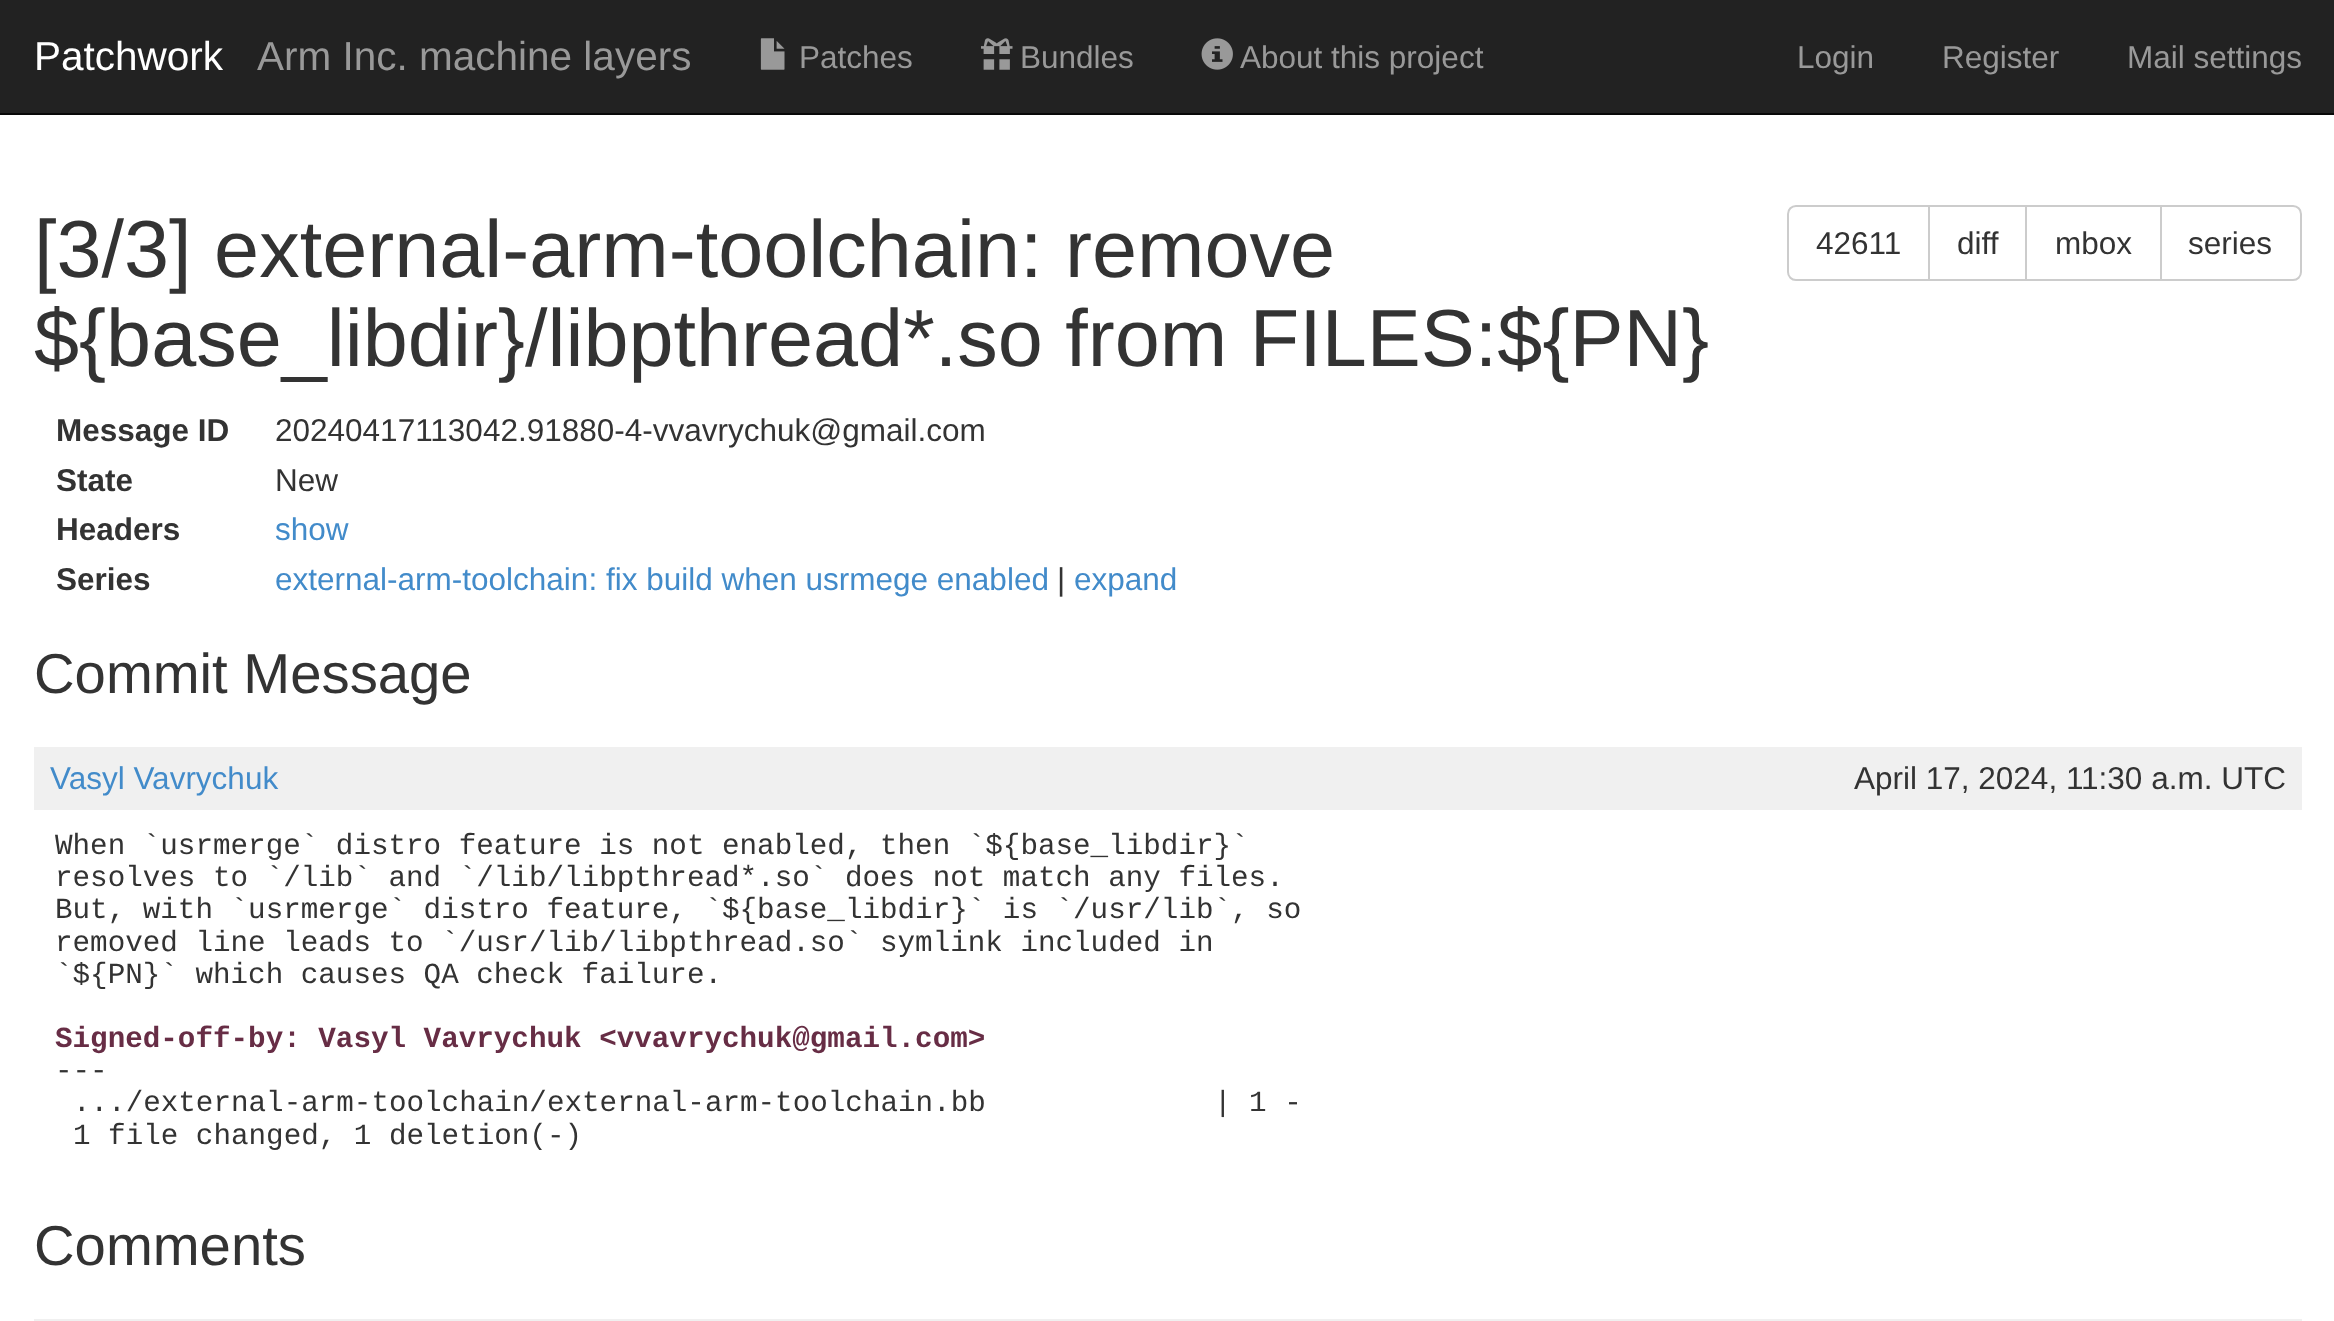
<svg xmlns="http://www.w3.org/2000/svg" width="2334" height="1321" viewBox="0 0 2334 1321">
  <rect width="100%" height="100%" fill="rgb(255,255,255)"/>
  <rect x="0" y="0" width="2334" height="113" fill="rgb(34,34,34)"/>
  <rect x="0" y="113" width="2334" height="2" fill="rgb(8,8,8)"/>
  <text x="34" y="70" font-family="Liberation Sans" font-size="40.5" fill="rgb(255,255,255)">Patchwork</text>
  <text x="257" y="70" font-family="Liberation Sans" font-size="40.5" fill="rgb(153,153,153)">Arm Inc. machine layers</text>
  <image x="760" y="38" width="25" height="32" href="pic1.png"/>
  <text x="799" y="68" font-family="Liberation Sans" font-size="31.5" fill="rgb(153,153,153)">Patches</text>
  <image x="981" y="38" width="32" height="32" href="pic2.png"/>
  <text x="1020" y="68" font-family="Liberation Sans" font-size="31.5" fill="rgb(153,153,153)">Bundles</text>
  <image x="1201" y="38" width="32" height="32" href="pic3.png"/>
  <g font-family="Liberation Sans" font-size="31.5" fill="rgb(153,153,153)">
    <text x="1240" y="68">About this project</text>
    <text x="1797" y="68">Login</text>
    <text x="1942" y="68">Register</text>
    <text x="2127" y="68">Mail settings</text>
  </g>
  <g font-family="Liberation Sans" font-size="81" fill="rgb(51,51,51)">
    <text>
      <tspan x="34" y="277">[3/3] external-arm-toolchain: remove</tspan>
      <tspan x="34" y="366">${base_libdir}/libpthread*.so from FILES:${PN}</tspan>
    </text>
  </g>
  <path d="M1796 206H1930V280H1796C1791.5 280 1788 276.5 1788 272V214C1788 209.5 1791.5 206 1796 206Z" fill="none" stroke="rgb(204,204,204)" stroke-width="2"/>
  <text x="1816" y="254" font-family="Liberation Sans" font-size="31.5" fill="rgb(51,51,51)">42611</text>
  <rect x="1930" y="207" width="1" height="72" fill="rgb(255,255,255)"/>
  <rect x="1929" y="206" width="97" height="74" fill="none" stroke="rgb(204,204,204)" stroke-width="2"/>
  <text x="1957" y="254" font-family="Liberation Sans" font-size="31.5" fill="rgb(51,51,51)">diff</text>
  <rect x="2026" y="206" width="135" height="74" fill="none" stroke="rgb(204,204,204)" stroke-width="2"/>
  <text x="2055" y="254" font-family="Liberation Sans" font-size="31.5" fill="rgb(51,51,51)">mbox</text>
  <path d="M2161 206H2293C2297.5 206 2301 209.5 2301 214V272C2301 276.5 2297.5 280 2293 280H2161Z" fill="rgb(255,255,255)" stroke="rgb(204,204,204)" stroke-width="2"/>
  <text x="2188" y="254" font-family="Liberation Sans" font-size="31.5" fill="rgb(51,51,51)">series</text>
  <text x="56" y="441" font-family="Liberation Sans" font-size="31.5" font-weight="bold" fill="rgb(51,51,51)">Message ID</text>
  <text x="275" y="441" font-family="Liberation Sans" font-size="31.5" fill="rgb(51,51,51)">20240417113042.91880-4-vvavrychuk@gmail.com</text>
  <text x="56" y="491" font-family="Liberation Sans" font-size="31.5" font-weight="bold" fill="rgb(51,51,51)">State</text>
  <text x="275" y="491" font-family="Liberation Sans" font-size="31.5" fill="rgb(51,51,51)">New</text>
  <text x="56" y="540" font-family="Liberation Sans" font-size="31.5" font-weight="bold" fill="rgb(51,51,51)">Headers</text>
  <text x="275" y="540" font-family="Liberation Sans" font-size="31.5" fill="rgb(66,139,202)">show</text>
  <text x="56" y="590" font-family="Liberation Sans" font-size="31.5" font-weight="bold" fill="rgb(51,51,51)">Series</text>
  <text x="275" y="590" font-family="Liberation Sans" font-size="31.5" fill="rgb(66,139,202)">external-arm-toolchain: fix build when usrmege enabled</text>
  <text x="1057" y="590" font-family="Liberation Sans" font-size="31.5" fill="rgb(51,51,51)">|</text>
  <text x="1074" y="590" font-family="Liberation Sans" font-size="31.5" fill="rgb(66,139,202)">expand</text>
  <text x="34" y="693" font-family="Liberation Sans" font-size="56.25" fill="rgb(51,51,51)">Commit Message</text>
  <rect x="34" y="747" width="2268" height="63" fill="rgb(240,240,240)"/>
  <text x="50" y="789" font-family="Liberation Sans" font-size="31.5" fill="rgb(66,139,202)">Vasyl Vavrychuk</text>
  <text x="1854" y="789" font-family="Liberation Sans" font-size="31.5" fill="rgb(51,51,51)">April 17, 2024, 11:30 a.m. UTC</text>
  <g font-family="Liberation Mono" font-size="29.25" fill="rgb(51,51,51)">
    <text>
      <tspan x="55" y="854">When `usrmerge` distro feature is not enabled, then `${base_libdir}`</tspan>
      <tspan x="55" y="886">resolves to `/lib` and `/lib/libpthread*.so` does not match any files.</tspan>
      <tspan x="55" y="918">But, with `usrmerge` distro feature, `${base_libdir}` is `/usr/lib`, so</tspan>
      <tspan x="55" y="951">removed line leads to `/usr/lib/libpthread.so` symlink included in</tspan>
      <tspan x="55" y="983">`${PN}` which causes QA check failure.</tspan>
    </text>
  </g>
  <text x="55" y="1047" font-family="Liberation Mono" font-size="29.25" font-weight="bold" fill="rgb(103,45,69)">Signed-off-by: Vasyl Vavrychuk &lt;vvavrychuk@gmail.com&gt;</text>
  <g font-family="Liberation Mono" font-size="29.25" fill="rgb(51,51,51)">
    <text x="55" y="1079">---</text>
    <text xml:space="preserve"><tspan x="73" y="1111">.../external-arm-toolchain/external-arm-toolchain.bb             | 1 -</tspan><tspan x="73" y="1144">1 file changed, 1 deletion(-)</tspan></text>
  </g>
  <text x="34" y="1265" font-family="Liberation Sans" font-size="56.25" fill="rgb(51,51,51)">Comments</text>
  <rect x="34" y="1319" width="2268" height="2" fill="rgb(240,240,240)"/>
</svg>
